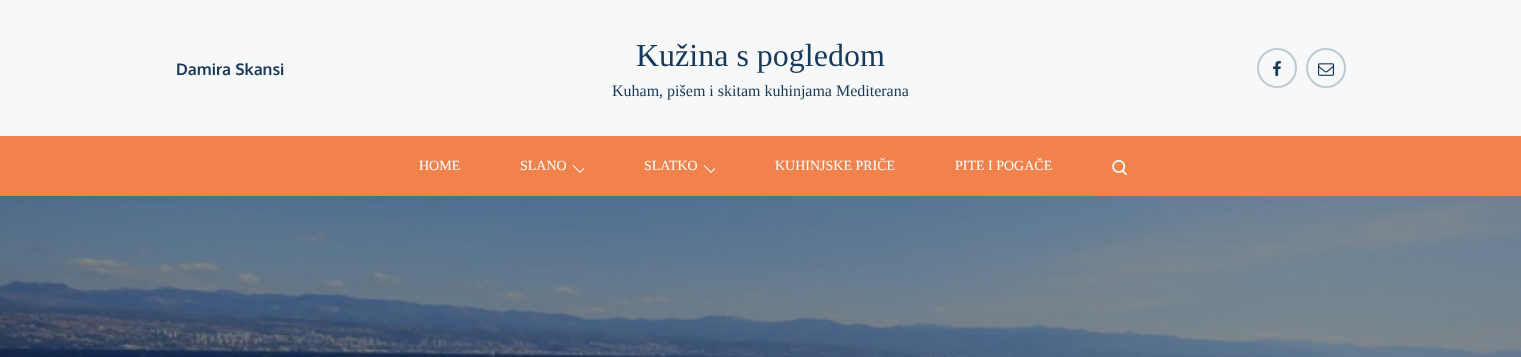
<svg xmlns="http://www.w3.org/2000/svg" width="1521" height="357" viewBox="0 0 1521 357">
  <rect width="100%" height="100%" fill="rgb(247,248,250)"/>
  <text x="176" y="75" font-family="Oxygen" font-size="16" font-weight="bold" fill="rgb(23,56,87)">Damira Skansi</text>
  <text x="636" y="66" font-family="Liberation Serif" font-size="32" fill="rgb(23,56,87)">Kužina s pogledom</text>
  <text x="612" y="96" font-family="Liberation Serif" font-size="16" fill="rgb(23,56,87)">Kuham, pišem i skitam kuhinjama Mediterana</text>
  <circle cx="1277" cy="68" r="19" fill="none" stroke="rgb(188,202,211)" stroke-width="2"/>
  <image x="1273" y="61" width="8" height="15" href="pic1.png"/>
  <circle cx="1326" cy="68" r="19" fill="none" stroke="rgb(188,202,211)" stroke-width="2"/>
  <image x="1318" y="63" width="16" height="13" href="pic2.png"/>
  <rect x="0" y="136" width="1521" height="60" fill="rgb(241,130,76)"/>
  <g font-family="Liberation Serif" font-size="14" fill="rgb(255,255,255)">
    <text x="419" y="170">HOME</text>
    <text x="520" y="170">SLANO</text>
  </g>
  <image x="572" y="165" width="12" height="8" href="pic3.png"/>
  <text x="644" y="170" font-family="Liberation Serif" font-size="14" fill="rgb(255,255,255)">SLATKO</text>
  <image x="703" y="165" width="12" height="8" href="pic3.png"/>
  <g font-family="Liberation Serif" font-size="14" fill="rgb(255,255,255)">
    <text x="775" y="170">KUHINJSKE PRIČE</text>
    <text x="955" y="170">PITE I POGAČE</text>
  </g>
  <image x="1112" y="160" width="15" height="15" href="pic4.png"/>
  <image x="0" y="196" width="1521" height="161" href="pic5.png"/>
</svg>
